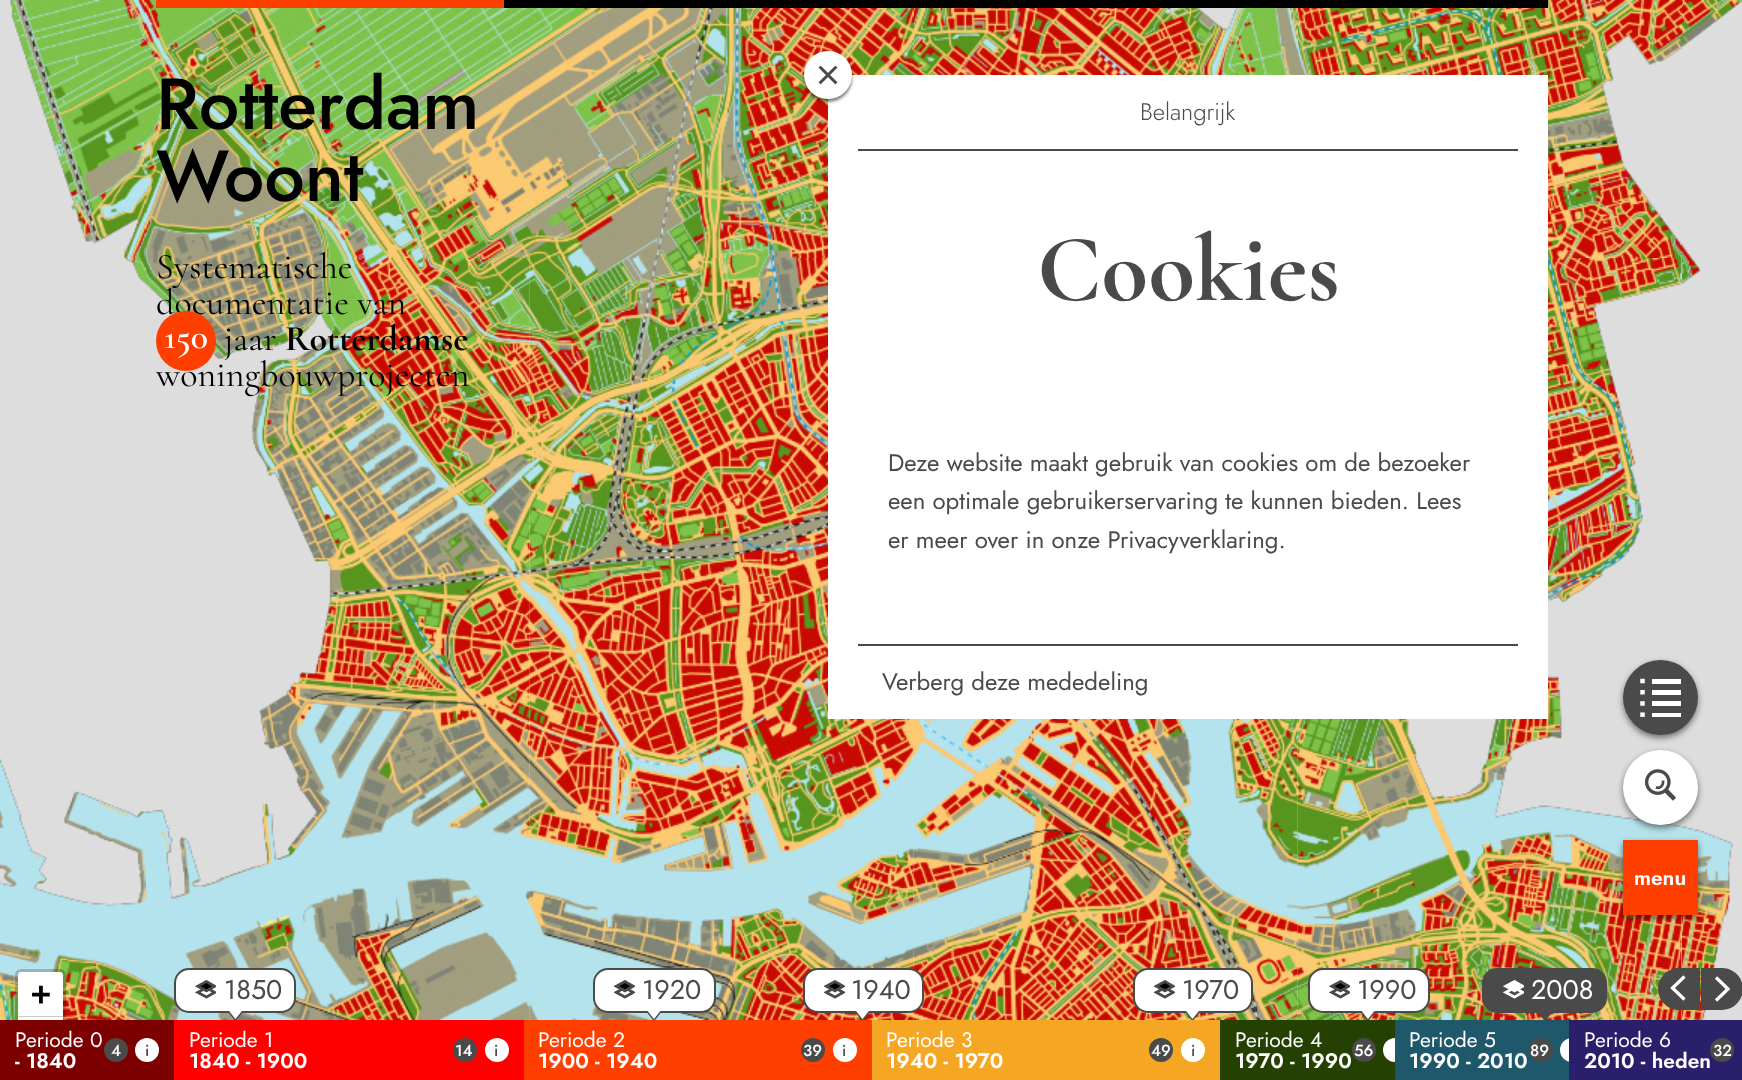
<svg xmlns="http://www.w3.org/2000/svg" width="1742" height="1080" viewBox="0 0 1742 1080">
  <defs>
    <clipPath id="clip1"><path d="M828 58L845 75L828 92L811 75Z"/></clipPath>
  </defs>
  <rect width="100%" height="100%" fill="rgb(221,221,221)"/>
  <image x="146" y="0" width="384" height="258" href="pic13.png"/>
  <g font-family="Jost" font-size="72" font-weight="500" fill="rgb(0,0,0)">
    <text>
      <tspan x="156" y="129">Rotterdam</tspan>
      <tspan x="156" y="201">Woont</tspan>
    </text>
  </g>
  <image x="529" y="258" width="299" height="384" href="pic20.png"/>
  <image x="145" y="258" width="385" height="384" href="pic19.png"/>
  <g font-family="Cormorant" font-size="36" fill="rgb(0,0,0)">
    <text>
      <tspan x="156" y="278">Systematische</tspan>
      <tspan x="156" y="314">documentatie van</tspan>
    </text>
    <text x="156" y="386">woningbouwprojecten</text>
  </g>
  <circle cx="186" cy="341" r="30" fill="rgb(255,63,0)"/>
  <text x="164" y="348" font-family="Cormorant" font-size="36" font-weight="600" fill="rgb(255,255,255)">150</text>
  <text x="224" y="350" font-family="Cormorant" font-size="36" fill="rgb(0,0,0)">jaar</text>
  <text x="285" y="350" font-family="Cormorant" font-size="36" font-weight="bold" fill="rgb(0,0,0)">Rotterdamse</text>
  <image x="530" y="8" width="384" height="250" href="pic14.png"/>
  <image x="1298" y="0" width="384" height="258" href="pic16.png"/>
  <image x="529" y="642" width="385" height="378" href="pic25.png"/>
  <image x="913" y="719" width="385" height="301" href="pic26.png"/>
  <image x="1297" y="676" width="385" height="344" href="pic27.png"/>
  <rect x="828" y="75" width="720" height="644" fill="rgb(255,255,255)"/>
  <rect x="858" y="149" width="660" height="2" fill="rgb(74,74,74)"/>
  <rect x="804" y="54" width="48" height="48" rx="24" fill="rgba(0,0,0,0.5)" filter="blur(1.5px)"/>
  <circle cx="828" cy="75" r="24" fill="rgb(255,255,255)"/>
  <g clip-path="url(#clip1)">
    <path d="M835.5 82.5L820.5 67.5M835.5 67.5L820.5 82.5" fill="none" stroke="rgb(74,74,74)" stroke-width="3" stroke-linecap="square"/>
  </g>
  <text x="1140" y="120" font-family="Jost" font-size="24" font-weight="300" fill="rgb(74,74,74)">Belangrijk</text>
  <text x="1037" y="300" font-family="Cormorant" font-size="96" font-weight="bold" fill="rgb(74,74,74)">Cookies</text>
  <g font-family="Jost" font-size="24" fill="rgb(74,74,74)">
    <text>
      <tspan x="888" y="471">Deze website maakt gebruik van cookies om de bezoeker</tspan>
      <tspan x="888" y="509">een optimale gebruikerservaring te kunnen bieden. Lees</tspan>
      <tspan x="888" y="548">er meer over in onze Privacyverklaring.</tspan>
    </text>
  </g>
  <rect x="858" y="644" width="660" height="2" fill="rgb(74,74,74)"/>
  <text x="882" y="690" font-family="Jost" font-size="24" fill="rgb(74,74,74)">Verberg deze mededeling</text>
  <rect x="1623" y="663" width="75" height="75" rx="37.5" fill="rgba(0,0,0,0.5)" filter="blur(3px)"/>
  <circle cx="1660.5" cy="697.5" r="37.5" fill="rgb(74,74,74)"/>
  <image x="1640" y="678" width="41" height="39" href="pic1.png"/>
  <image x="1682" y="826" width="51" height="194" href="pic28.png"/>
  <rect x="1623" y="753" width="75" height="75" rx="37.5" fill="rgba(0,0,0,0.5)" filter="blur(3px)"/>
  <circle cx="1660.5" cy="787.5" r="37.5" fill="rgb(255,255,255)"/>
  <image x="1644" y="769" width="32" height="32" href="pic2.png"/>
  <rect x="1623" y="843" width="75" height="75" fill="rgba(0,0,0,0.5)" filter="blur(3px)"/>
  <rect x="1623" y="840" width="75" height="75" fill="rgb(255,63,0)"/>
  <text x="1634" y="885" font-family="Jost" font-size="21" font-weight="600" fill="rgb(255,255,255)">menu</text>
  <rect x="504" y="0" width="1044" height="8" fill="rgb(0,0,0)"/>
  <rect x="156" y="0" width="348" height="8" fill="rgb(255,63,0)"/>
  <image x="145" y="642" width="385" height="378" href="pic24.png"/>
  <rect x="175" y="969" width="120" height="43" rx="14" fill="rgb(255,255,255)" stroke="rgb(74,74,74)" stroke-width="2"/>
  <image x="195" y="980" width="21" height="19" href="pic3.png"/>
  <text x="224" y="999" font-family="Jost" font-size="27" fill="rgb(74,74,74)">1850</text>
  <image x="228" y="1011" width="15" height="9" href="pic4.png"/>
  <rect x="594" y="969" width="121" height="43" rx="14" fill="rgb(255,255,255)" stroke="rgb(74,74,74)" stroke-width="2"/>
  <image x="614" y="980" width="21" height="19" href="pic5.png"/>
  <text x="642" y="999" font-family="Jost" font-size="27" fill="rgb(74,74,74)">1920</text>
  <image x="647" y="1011" width="14" height="9" href="pic6.png"/>
  <rect x="804" y="969" width="119" height="43" rx="14" fill="rgb(255,255,255)" stroke="rgb(74,74,74)" stroke-width="2"/>
  <image x="824" y="980" width="21" height="19" href="pic5.png"/>
  <text x="851" y="999" font-family="Jost" font-size="27" fill="rgb(74,74,74)">1940</text>
  <image x="855" y="1011" width="15" height="9" href="pic7.png"/>
  <rect x="1134" y="969" width="118" height="43" rx="14" fill="rgb(255,255,255)" stroke="rgb(74,74,74)" stroke-width="2"/>
  <image x="1154" y="980" width="21" height="19" href="pic5.png"/>
  <text x="1182" y="999" font-family="Jost" font-size="27" fill="rgb(74,74,74)">1970</text>
  <image x="1185" y="1011" width="15" height="9" href="pic8.png"/>
  <rect x="1309" y="969" width="120" height="43" rx="14" fill="rgb(255,255,255)" stroke="rgb(74,74,74)" stroke-width="2"/>
  <image x="1329" y="980" width="21" height="19" href="pic3.png"/>
  <text x="1357" y="999" font-family="Jost" font-size="27" fill="rgb(74,74,74)">1990</text>
  <image x="1361" y="1011" width="14" height="9" href="pic9.png"/>
  <rect x="1483" y="969" width="123" height="43" rx="14" fill="rgb(74,74,74)" stroke="rgb(74,74,74)" stroke-width="2"/>
  <image x="1503" y="980" width="21" height="19" href="pic10.png"/>
  <text x="1531" y="999" font-family="Jost" font-size="27" fill="rgb(255,255,255)">2008</text>
  <image x="1538" y="1013" width="14" height="7" href="pic11.png"/>
  <path d="M1679 968H1700V1010H1679C1667.5 1010 1658 1000.5 1658 989C1658 977.5 1667.5 968 1679 968Z" fill="rgb(74,74,74)"/>
  <path d="M1701 968H1722C1733.5 968 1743 977.5 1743 989C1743 1000.5 1733.5 1010 1722 1010H1701Z" fill="rgb(74,74,74)"/>
  <path d="M1684.5 976.5L1671.5 989M1684.5 999.5L1671.5 987M1716 1000.5L1729 988M1716 977.5L1729 990" fill="none" stroke="rgb(255,255,255)" stroke-width="3.2"/>
  <image x="0" y="759" width="146" height="261" href="pic23.png"/>
  <rect x="16.5" y="970.5" width="48" height="93" rx="4.5" fill="none" stroke="rgba(0,0,0,0.2)" stroke-width="3"/>
  <rect x="0" y="1020" width="174" height="60" fill="rgb(124,0,0)"/>
  <text x="15" y="1047" font-family="Jost" font-size="21" fill="rgb(255,255,255)">Periode 0</text>
  <text x="15" y="1068" font-family="Jost" font-size="21" font-weight="600" fill="rgb(255,255,255)">- 1840</text>
  <circle cx="116" cy="1050" r="12" fill="rgb(74,74,74)"/>
  <text x="111" y="1056" font-family="Jost" font-size="16" font-weight="500" fill="rgb(255,255,255)">4</text>
  <circle cx="147" cy="1050" r="12" fill="rgb(255,255,255)"/>
  <text x="145" y="1056" font-family="Jost" font-size="16" font-weight="500" fill="rgb(74,74,74)">i</text>
  <rect x="174" y="1020" width="350" height="60" fill="rgb(255,0,0)"/>
  <text x="189" y="1047" font-family="Jost" font-size="21" fill="rgb(255,255,255)">Periode 1</text>
  <text x="189" y="1068" font-family="Jost" font-size="21" font-weight="600" fill="rgb(255,255,255)">1840 - 1900</text>
  <circle cx="465" cy="1050" r="12" fill="rgb(74,74,74)"/>
  <text x="455" y="1056" font-family="Jost" font-size="16" font-weight="500" fill="rgb(255,255,255)">14</text>
  <circle cx="497" cy="1050" r="12" fill="rgb(255,255,255)"/>
  <text x="494" y="1056" font-family="Jost" font-size="16" font-weight="500" fill="rgb(74,74,74)">i</text>
  <rect x="524" y="1020" width="348" height="60" fill="rgb(255,63,0)"/>
  <text x="538" y="1047" font-family="Jost" font-size="21" fill="rgb(255,255,255)">Periode 2</text>
  <text x="538" y="1068" font-family="Jost" font-size="21" font-weight="600" fill="rgb(255,255,255)">1900 - 1940</text>
  <circle cx="813" cy="1050" r="12" fill="rgb(74,74,74)"/>
  <text x="803" y="1056" font-family="Jost" font-size="16" font-weight="500" fill="rgb(255,255,255)">39</text>
  <circle cx="845" cy="1050" r="12" fill="rgb(255,255,255)"/>
  <text x="842" y="1056" font-family="Jost" font-size="16" font-weight="500" fill="rgb(74,74,74)">i</text>
  <rect x="872" y="1020" width="348" height="60" fill="rgb(245,166,35)"/>
  <text x="886" y="1047" font-family="Jost" font-size="21" fill="rgb(255,255,255)">Periode 3</text>
  <text x="886" y="1068" font-family="Jost" font-size="21" font-weight="600" fill="rgb(255,255,255)">1940 - 1970</text>
  <circle cx="1161" cy="1050" r="12" fill="rgb(74,74,74)"/>
  <text x="1151" y="1056" font-family="Jost" font-size="16" font-weight="500" fill="rgb(255,255,255)">49</text>
  <circle cx="1193" cy="1050" r="12" fill="rgb(255,255,255)"/>
  <text x="1191" y="1056" font-family="Jost" font-size="16" font-weight="500" fill="rgb(74,74,74)">i</text>
  <rect x="1220" y="1020" width="175" height="60" fill="rgb(36,65,2)"/>
  <text x="1235" y="1047" font-family="Jost" font-size="21" fill="rgb(255,255,255)">Periode 4</text>
  <text x="1235" y="1068" font-family="Jost" font-size="21" font-weight="600" fill="rgb(255,255,255)">1970 - 1990</text>
  <circle cx="1364" cy="1050" r="12" fill="rgb(74,74,74)"/>
  <text x="1354" y="1056" font-family="Jost" font-size="16" font-weight="500" fill="rgb(255,255,255)">56</text>
  <circle cx="1395" cy="1050" r="12" fill="rgb(255,255,255)"/>
  <rect x="1395" y="1020" width="174" height="60" fill="rgb(31,88,106)"/>
  <text x="1409" y="1047" font-family="Jost" font-size="21" fill="rgb(255,255,255)">Periode 5</text>
  <text x="1409" y="1068" font-family="Jost" font-size="21" font-weight="600" fill="rgb(255,255,255)">1990 - 2010</text>
  <circle cx="1541" cy="1050" r="12" fill="rgb(74,74,74)"/>
  <text x="1530" y="1056" font-family="Jost" font-size="16" font-weight="500" fill="rgb(255,255,255)">89</text>
  <circle cx="1572" cy="1050" r="12" fill="rgb(255,255,255)"/>
  <rect x="1569" y="1020" width="173" height="60" fill="rgb(41,31,106)"/>
  <text x="1584" y="1047" font-family="Jost" font-size="21" fill="rgb(255,255,255)">Periode 6</text>
  <text x="1584" y="1068" font-family="Jost" font-size="21" font-weight="600" fill="rgb(255,255,255)">2010 - heden</text>
  <circle cx="1722" cy="1050" r="12" fill="rgb(74,74,74)"/>
  <text x="1713" y="1056" font-family="Jost" font-size="16" font-weight="500" fill="rgb(255,255,255)">32</text>
  <image x="10" y="0" width="136" height="258" href="pic12.png"/>
  <image x="914" y="8" width="384" height="67" href="pic15.png"/>
  <image x="1682" y="0" width="60" height="258" href="pic17.png"/>
  <image x="125" y="258" width="21" height="26" href="pic18.png"/>
  <image x="1548" y="258" width="134" height="345" href="pic21.png"/>
  <image x="1682" y="258" width="19" height="26" href="pic22.png"/>
  <path d="M21 972H60C61.5 972 63 973.5 63 975V1017H18V975C18 973.5 19.5 972 21 972Z" fill="rgb(255,255,255)"/>
  <rect x="18" y="1016" width="45" height="1" fill="rgb(204,204,204)"/>
  <text x="31" y="1005" font-family="DejaVu Sans Mono" font-size="33" font-weight="bold" fill="rgb(0,0,0)">+</text>
  <rect x="18" y="1017" width="45" height="3" fill="rgb(255,255,255)"/>
</svg>
